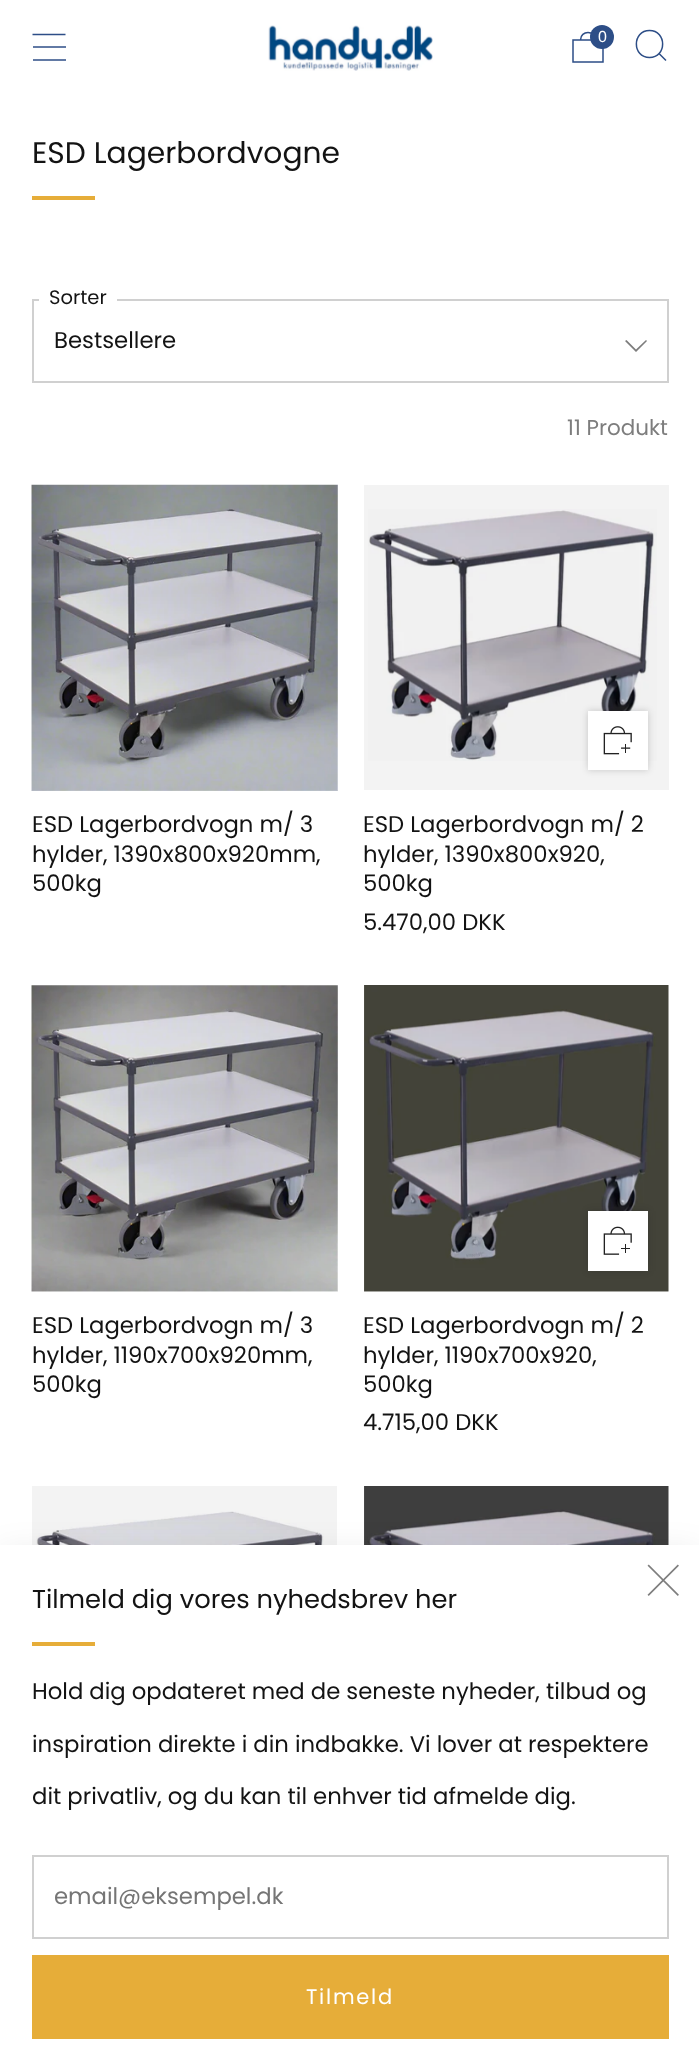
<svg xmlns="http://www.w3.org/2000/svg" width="699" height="2070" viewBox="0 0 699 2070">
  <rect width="100%" height="100%" fill="rgb(255,255,255)"/>
  <rect x="364" y="1486" width="305" height="59" fill="rgb(243,243,243)"/>
  <rect x="32" y="1486" width="305" height="59" fill="rgb(243,243,243)"/>
  <rect x="364" y="985" width="305" height="306" fill="rgb(243,243,243)"/>
  <rect x="364" y="485" width="305" height="305" fill="rgb(243,243,243)"/>
  <path d="M32.5 34.5H65.5" fill="none" stroke="rgb(45,78,135)" stroke-width="1.5"/>
  <rect x="33" y="46" width="33" height="2" fill="rgb(98,122,165)"/>
  <rect x="33" y="59" width="33" height="2" fill="rgb(98,122,165)"/>
  <image x="268" y="25" width="165" height="46" href="pic1.png"/>
  <path d="M573 40H603V62H573ZM595.5 40C595.5 30 580.5 30 580.5 40" fill="none" stroke="rgb(45,78,135)" stroke-width="1.5"/>
  <circle cx="602" cy="37" r="12" fill="rgb(45,78,135)"/>
  <text x="598" y="42" font-family="Liberation Sans" font-size="16" fill="rgb(255,255,255)">0</text>
  <path d="M649.5 57.5C667 57.5 667 30.5 649.5 30.5C632 30.5 632 57.5 649.5 57.5ZM659 53.5L666 60.5" fill="none" stroke="rgb(45,78,135)" stroke-width="1.5"/>
  <text x="32" y="163" font-family="Poppins" font-size="29.75" fill="rgb(19,19,19)">ESD Lagerbordvogne</text>
  <rect x="32" y="196" width="63" height="4" fill="rgb(230,173,57)"/>
  <rect x="33" y="300" width="635" height="82" fill="none" stroke="rgb(208,208,208)" stroke-width="2"/>
  <rect x="39" y="299" width="78" height="2" fill="rgb(255,255,255)"/>
  <text x="49" y="304" font-family="Poppins" font-size="19.5" fill="rgb(19,19,19)">Sorter</text>
  <text x="54" y="348" font-family="Poppins" font-size="22.75" fill="rgb(19,19,19)">Bestsellere</text>
  <path d="M626.5 340L625 341L636 352L647 341L646 340L636 349.5Z" fill="rgb(125,125,125)"/>
  <text x="567" y="435" font-family="Poppins" font-size="21.5" fill="rgb(125,125,125)">11 Produkt</text>
  <image x="31" y="484" width="307" height="307" href="pic2.png"/>
  <g font-family="Poppins" font-size="22.75" fill="rgb(19,19,19)">
    <text>
      <tspan x="32" y="832">ESD Lagerbordvogn m/ 3</tspan>
      <tspan x="32" y="862">hylder, 1390x800x920mm,</tspan>
      <tspan x="32" y="891">500kg</tspan>
    </text>
  </g>
  <image x="368" y="509" width="289" height="252" href="pic3.png"/>
  <rect x="588" y="711" width="60" height="59" fill="rgba(19,19,19,0.2)" filter="blur(3.5px)"/>
  <rect x="588" y="711" width="60" height="59" fill="rgb(255,255,255)"/>
  <image x="603" y="726" width="29" height="29" href="pic4.png"/>
  <g font-family="Poppins" font-size="22.75" fill="rgb(19,19,19)">
    <text>
      <tspan x="363" y="832">ESD Lagerbordvogn m/ 2</tspan>
      <tspan x="363" y="862">hylder, 1390x800x920,</tspan>
      <tspan x="363" y="891">500kg</tspan>
      <tspan x="363" y="930">5.470,00 DKK</tspan>
    </text>
  </g>
  <image x="31" y="985" width="307" height="307" href="pic5.png"/>
  <g font-family="Poppins" font-size="22.75" fill="rgb(19,19,19)">
    <text>
      <tspan x="32" y="1333">ESD Lagerbordvogn m/ 3</tspan>
      <tspan x="32" y="1363">hylder, 1190x700x920mm,</tspan>
      <tspan x="32" y="1392">500kg</tspan>
    </text>
  </g>
  <image x="364" y="985" width="305" height="307" href="pic6.png"/>
  <rect x="588" y="1211" width="60" height="60" fill="rgba(19,19,19,0.2)" filter="blur(3.5px)"/>
  <rect x="588" y="1211" width="60" height="60" fill="rgb(255,255,255)"/>
  <image x="603" y="1226" width="29" height="29" href="pic7.png"/>
  <g font-family="Poppins" font-size="22.75" fill="rgb(19,19,19)">
    <text>
      <tspan x="363" y="1333">ESD Lagerbordvogn m/ 2</tspan>
      <tspan x="363" y="1363">hylder, 1190x700x920,</tspan>
      <tspan x="363" y="1392">500kg</tspan>
      <tspan x="363" y="1430">4.715,00 DKK</tspan>
    </text>
  </g>
  <image x="36" y="1511" width="288" height="34" href="pic8.png"/>
  <image x="364" y="1486" width="305" height="59" href="pic9.png"/>
  <rect x="0" y="1551" width="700" height="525" fill="rgba(0,0,0,0.08)" filter="blur(16px)"/>
  <rect x="0" y="1545" width="699" height="525" fill="rgb(255,255,255)"/>
  <image x="647" y="1564" width="32" height="32" href="pic10.png"/>
  <text x="32" y="1608" font-family="Poppins" font-size="25.75" fill="rgb(19,19,19)">Tilmeld dig vores nyhedsbrev her</text>
  <rect x="32" y="1642" width="63" height="4" fill="rgb(230,173,57)"/>
  <g font-family="Poppins" font-size="22.75" fill="rgb(19,19,19)">
    <text x="32" y="1699">Hold dig opdateret med de seneste nyheder, tilbud og</text>
    <text x="32" y="1752">inspiration direkte i din indbakke. Vi lover at respektere</text>
    <text x="32" y="1804">dit privatliv, og du kan til enhver tid afmelde dig.</text>
  </g>
  <rect x="33" y="1856" width="635" height="82" fill="none" stroke="rgb(208,208,208)" stroke-width="2"/>
  <text x="54" y="1904" font-family="Poppins" font-size="22.75" fill="rgb(117,117,117)">email@eksempel.dk</text>
  <rect x="32" y="1955" width="637" height="84" fill="rgb(230,173,57)"/>
  <text x="306" y="2004" font-family="Poppins" font-size="21" letter-spacing="1.75" fill="rgb(255,255,255)">Tilmeld</text>
</svg>
